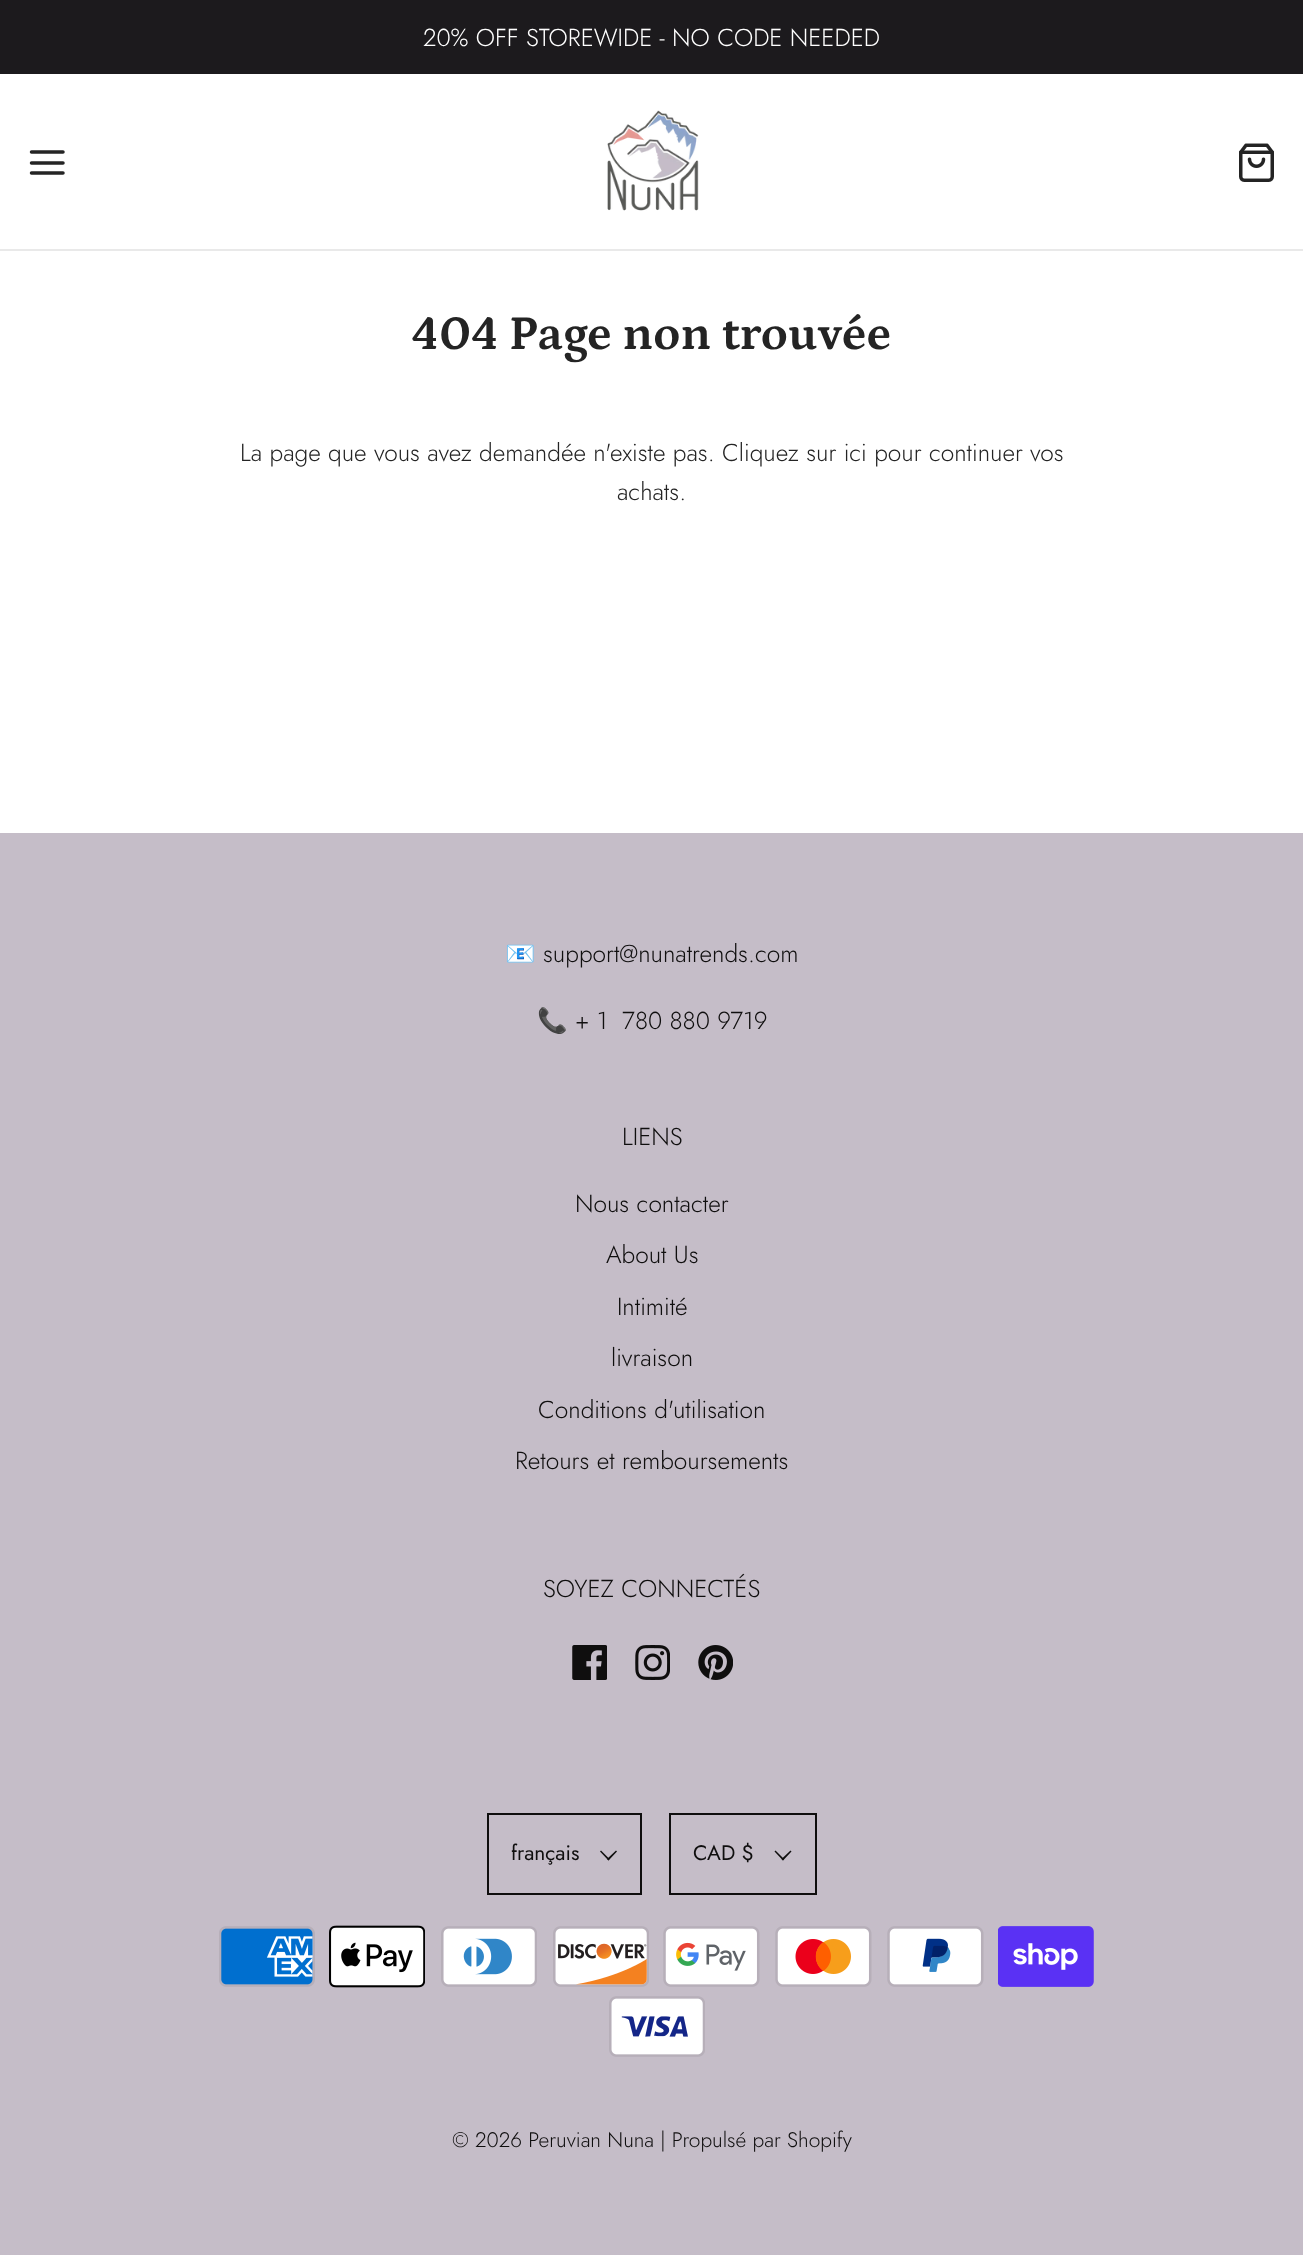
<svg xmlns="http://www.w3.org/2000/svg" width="1303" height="2255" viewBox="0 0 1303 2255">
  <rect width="100%" height="100%" fill="rgb(255,255,255)"/>
  <rect x="0" y="0" width="1303" height="74" fill="rgb(28,26,29)"/>
  <text x="423" y="46" font-family="Jost" font-size="24.5" font-weight="300" fill="rgb(255,255,255)">20% OFF STOREWIDE - NO CODE NEEDED</text>
  <rect x="0" y="249" width="1303" height="2" fill="rgb(233,233,233)"/>
  <path d="M31.5 163H63M31.5 152H63M31.5 173H63" fill="none" stroke="rgb(36,36,36)" stroke-width="3.5" stroke-linecap="round" stroke-linejoin="round"/>
  <image x="607" y="110" width="92" height="101" href="pic1.png"/>
  <image x="1239" y="143" width="35" height="39" href="pic2.png"/>
  <text x="412" y="349" font-family="Petrona" font-size="49" font-weight="bold" fill="rgb(36,36,36)">404 Page non trouvée</text>
  <g font-family="Jost" font-size="24.5" font-weight="300" fill="rgb(36,36,36)">
    <text x="240" y="461">La page que vous avez demandée n'existe pas. Cliquez sur ici pour continuer vos</text>
    <text x="617" y="500">achats.</text>
  </g>
  <rect x="0" y="833" width="1303" height="1422" fill="rgb(197,189,200)"/>
  <text x="505" y="962" font-family="Noto Color Emoji" font-size="24.5" fill="rgb(15,14,14)">📧</text>
  <text x="543" y="962" font-family="Jost" font-size="24.5" font-weight="300" fill="rgb(15,14,14)">support@nunatrends.com</text>
  <text x="537" y="1029" font-family="Noto Color Emoji" font-size="24.5" fill="rgb(15,14,14)">📞</text>
  <g font-family="Jost" font-size="24.5" font-weight="300" fill="rgb(15,14,14)">
    <text x="575" y="1029" xml:space="preserve">+ 1  780 880 9719</text>
    <text x="622" y="1145">LIENS</text>
    <text x="575" y="1212">Nous contacter</text>
    <text x="606" y="1263">About Us</text>
    <text x="617" y="1315">Intimité</text>
    <text x="611" y="1366">livraison</text>
    <text x="538" y="1418">Conditions d'utilisation</text>
    <text x="515" y="1469">Retours et remboursements</text>
    <text x="543" y="1597">SOYEZ CONNECTÉS</text>
  </g>
  <image x="572" y="1645" width="35" height="35" href="pic3.png"/>
  <image x="635" y="1645" width="35" height="35" href="pic4.png"/>
  <image x="698" y="1645" width="35" height="35" href="pic5.png"/>
  <rect x="488" y="1814" width="153" height="80" fill="none" stroke="rgb(15,14,14)" stroke-width="2"/>
  <text x="511" y="1860" font-family="Jost" font-size="21" fill="rgb(15,14,14)">français</text>
  <path d="M616 1850.5L617 1851.5L608.5 1860.5L607 1859Z" fill="rgb(15,14,14)"/>
  <path d="M601 1850.5L609.5 1859L608.5 1860.5L600 1851.5Z" fill="rgb(15,14,14)"/>
  <rect x="670" y="1814" width="146" height="80" fill="none" stroke="rgb(15,14,14)" stroke-width="2"/>
  <text x="693" y="1860" font-family="Jost" font-size="21" fill="rgb(15,14,14)">CAD $</text>
  <path d="M790.5 1850.5L791.5 1851.5L783 1860.5L781.5 1859Z" fill="rgb(15,14,14)"/>
  <path d="M775.5 1850.5L784 1859L783 1860.5L774.5 1851.5Z" fill="rgb(15,14,14)"/>
  <image x="219" y="1926" width="96" height="61" href="pic6.png"/>
  <image x="329" y="1925" width="96" height="63" href="pic7.png"/>
  <image x="441" y="1926" width="96" height="61" href="pic8.png"/>
  <image x="553" y="1926" width="96" height="61" href="pic9.png"/>
  <image x="663" y="1926" width="97" height="61" href="pic10.png"/>
  <image x="775" y="1926" width="97" height="61" href="pic11.png"/>
  <image x="887" y="1926" width="97" height="61" href="pic12.png"/>
  <image x="998" y="1926" width="96" height="61" href="pic13.png"/>
  <image x="609" y="1996" width="96" height="61" href="pic14.png"/>
  <text x="452" y="2147" font-family="Jost" font-size="21" font-weight="300" fill="rgb(15,14,14)">© 2026 Peruvian Nuna | Propulsé par Shopify</text>
</svg>
